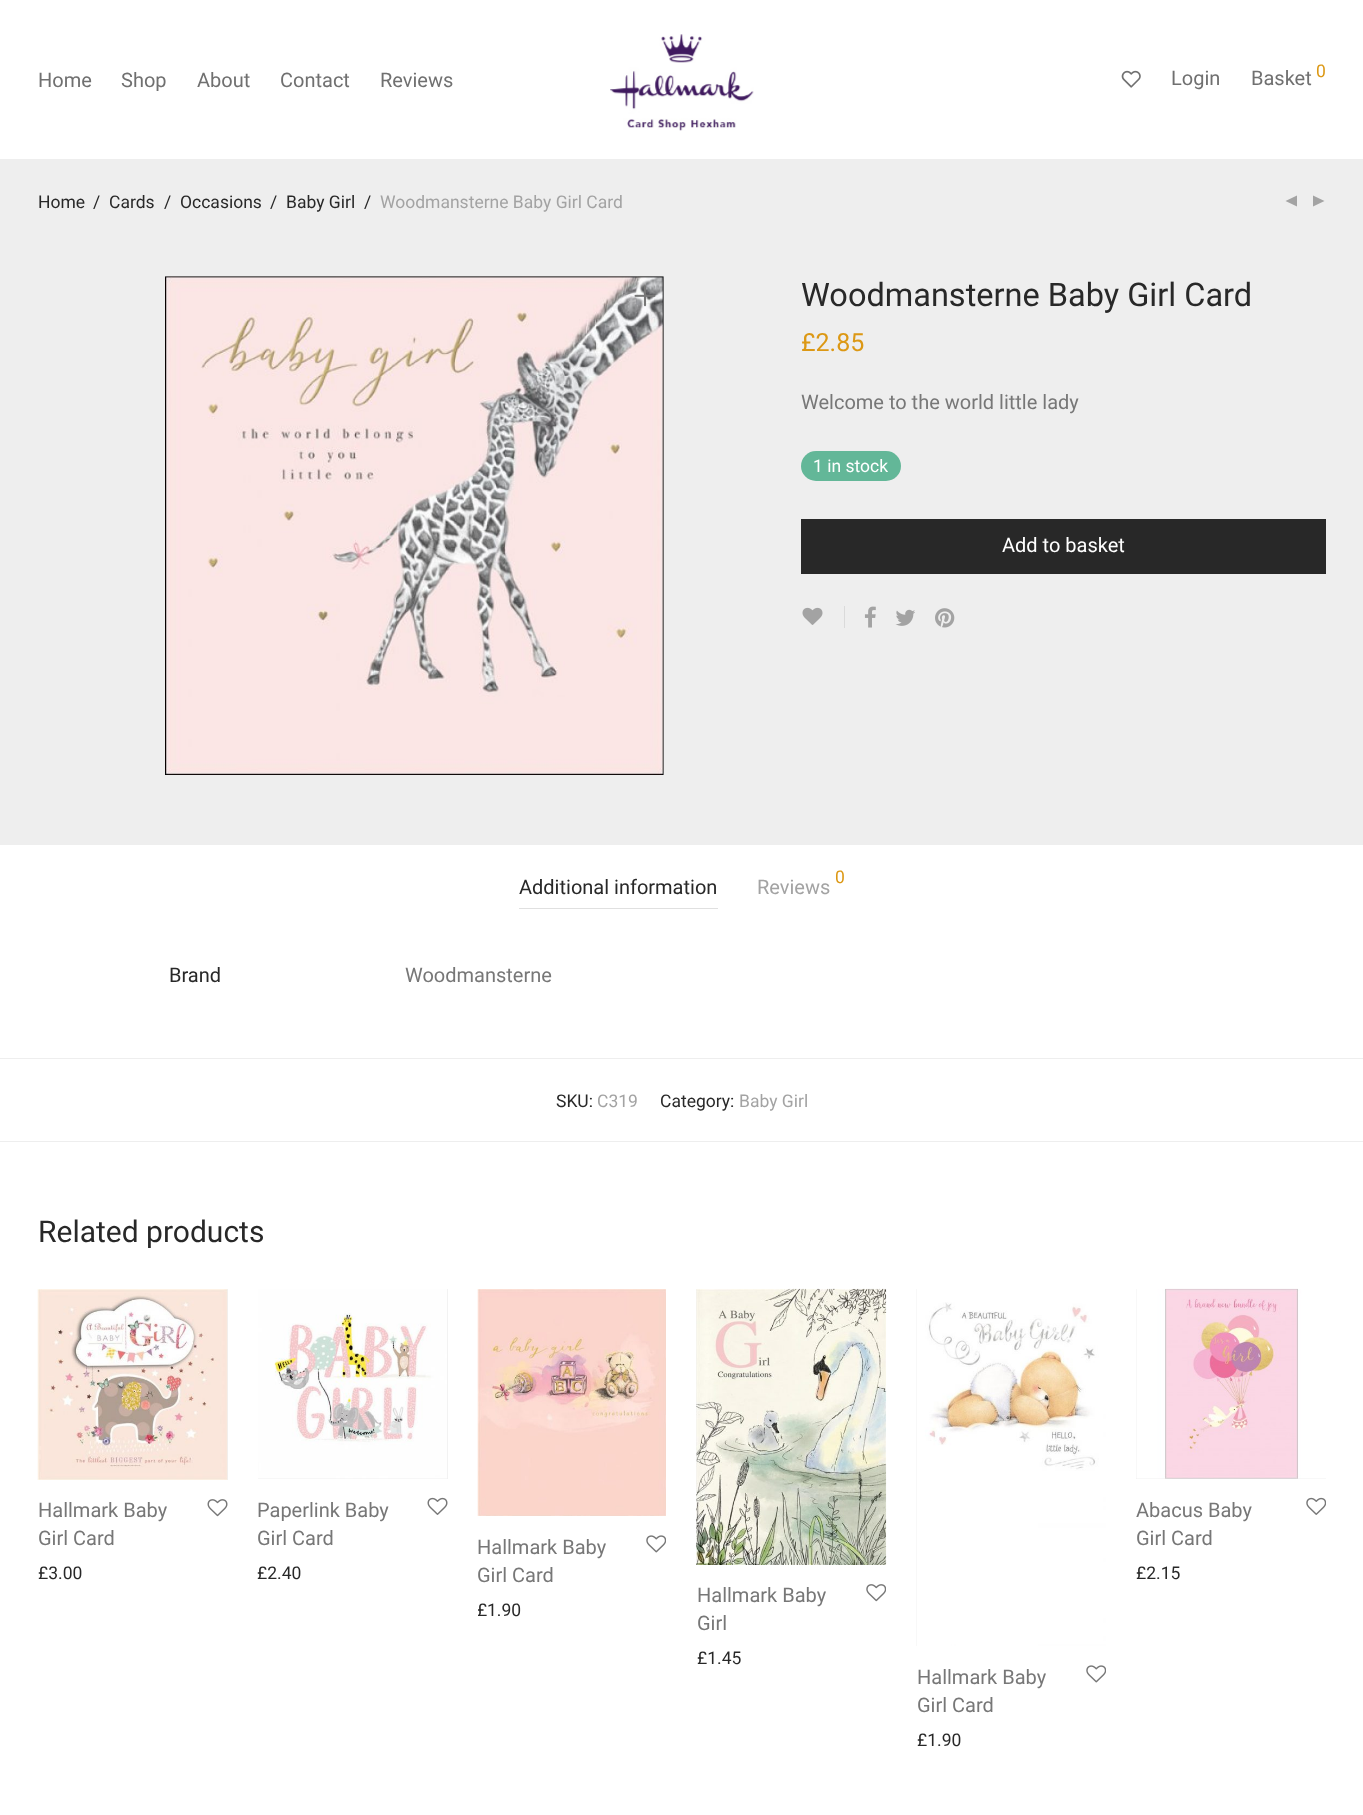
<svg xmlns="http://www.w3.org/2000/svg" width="1363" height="1815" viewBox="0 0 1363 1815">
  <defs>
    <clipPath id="clip1"><rect x="478" y="1534" width="188" height="94"/></clipPath>
  </defs>
  <rect width="100%" height="100%" fill="rgb(255,255,255)"/>
  <g font-family="Roboto" font-size="20" fill="rgb(112,112,112)">
    <text x="38" y="87">Home</text>
    <text x="121" y="87">Shop</text>
    <text x="197" y="87">About</text>
    <text x="280" y="87">Contact</text>
    <text x="380" y="87">Reviews</text>
  </g>
  <image x="610" y="34" width="144" height="97" href="pic1.png"/>
  <image x="1121" y="70" width="20" height="18" href="pic2.png"/>
  <g font-family="Roboto" font-size="20" fill="rgb(112,112,112)">
    <text x="1171" y="85">Login</text>
    <text x="1251" y="85">Basket</text>
  </g>
  <text x="1316" y="77" font-family="Roboto" font-size="17.5" fill="rgb(220,152,20)">0</text>
  <rect x="0" y="159" width="1363" height="686" fill="rgb(238,238,238)"/>
  <g font-family="Roboto" font-size="17.5" fill="rgb(40,40,40)">
    <text x="38" y="208">Home</text>
    <text x="93" y="208">/</text>
    <text x="109" y="208">Cards</text>
    <text x="164" y="208">/</text>
    <text x="180" y="208">Occasions</text>
    <text x="270" y="208">/</text>
    <text x="286" y="208">Baby Girl</text>
    <text x="364" y="208">/</text>
  </g>
  <text x="380" y="208" font-family="Roboto" font-size="17.5" fill="rgb(163,163,163)">Woodmansterne Baby Girl Card</text>
  <path d="M1297 195.5V206.5L1285.5 201ZM1313 195.5V206.5L1324.5 201Z" fill="rgb(163,163,163)"/>
  <image x="165" y="276" width="499" height="499" href="pic3.png"/>
  <image x="634" y="285" width="22" height="22" href="pic4.png"/>
  <text x="801" y="306" font-family="Roboto" font-size="32.5" fill="rgb(40,40,40)">Woodmansterne Baby Girl Card</text>
  <text x="801" y="351" font-family="Roboto" font-size="25" fill="rgb(220,152,20)">£2.85</text>
  <text x="801" y="409" font-family="Roboto" font-size="20" fill="rgb(119,119,119)">Welcome to the world little lady</text>
  <rect x="801" y="451" width="100" height="30" rx="15" fill="rgb(99,183,152)"/>
  <text x="813" y="472" font-family="Roboto" font-size="17.5" fill="rgb(255,255,255)">1 in stock</text>
  <rect x="801" y="519" width="525" height="55" fill="rgb(40,40,40)"/>
  <text x="1002" y="552" font-family="Roboto" font-size="20" fill="rgb(255,255,255)">Add to basket</text>
  <rect x="844" y="606" width="1" height="22" fill="rgb(218,218,218)"/>
  <image x="802" y="607" width="21" height="18" href="pic5.png"/>
  <image x="864" y="606" width="12" height="22" href="pic6.png"/>
  <image x="895" y="609" width="20" height="17" href="pic7.png"/>
  <image x="935" y="608" width="20" height="20" href="pic8.png"/>
  <rect x="0" y="1058" width="1363" height="1" fill="rgb(238,238,238)"/>
  <rect x="519" y="908" width="199" height="1" fill="rgb(224,224,224)"/>
  <text x="519" y="894" font-family="Roboto" font-size="20" fill="rgb(40,40,40)">Additional information</text>
  <text x="835" y="883" font-family="Roboto" font-size="17.5" fill="rgb(220,152,20)">0</text>
  <text x="757" y="894" font-family="Roboto" font-size="20" fill="rgb(163,163,163)">Reviews</text>
  <text x="169" y="982" font-family="Roboto" font-size="20" fill="rgb(40,40,40)">Brand</text>
  <text x="405" y="982" font-family="Roboto" font-size="20" fill="rgb(119,119,119)">Woodmansterne</text>
  <text x="556" y="1107" font-family="Roboto" font-size="17.5" fill="rgb(40,40,40)">SKU:</text>
  <text x="597" y="1107" font-family="Roboto" font-size="17.5" fill="rgb(163,163,163)">C319</text>
  <text x="660" y="1107" font-family="Roboto" font-size="17.5" fill="rgb(40,40,40)">Category:</text>
  <text x="739" y="1107" font-family="Roboto" font-size="17.5" fill="rgb(163,163,163)">Baby Girl</text>
  <rect x="0" y="1141" width="1363" height="1" fill="rgb(238,238,238)"/>
  <text x="38" y="1242" font-family="Roboto" font-size="30" fill="rgb(40,40,40)">Related products</text>
  <rect x="227" y="1289" width="1" height="191" fill="rgb(238,238,238)"/>
  <image x="37" y="1289" width="191" height="191" href="pic9.png"/>
  <g font-family="Roboto" font-size="20" fill="rgb(119,119,119)">
    <text>
      <tspan x="38" y="1517">Hallmark Baby</tspan>
      <tspan x="38" y="1545">Girl Card</tspan>
    </text>
  </g>
  <text x="38" y="1579" font-family="Roboto" font-size="17.5" fill="rgb(40,40,40)">£3.00</text>
  <image x="207" y="1499" width="21" height="18" href="pic10.png"/>
  <rect x="258" y="1289" width="190" height="190" fill="rgb(238,238,238)"/>
  <image x="258" y="1289" width="190" height="190" href="pic11.png"/>
  <g font-family="Roboto" font-size="20" fill="rgb(119,119,119)">
    <text>
      <tspan x="257" y="1517">Paperlink Baby</tspan>
      <tspan x="257" y="1545">Girl Card</tspan>
    </text>
  </g>
  <text x="257" y="1579" font-family="Roboto" font-size="17.5" fill="rgb(40,40,40)">£2.40</text>
  <image x="427" y="1497" width="21" height="18" href="pic12.png"/>
  <image x="477" y="1289" width="189" height="227" href="pic13.png"/>
  <g font-family="Roboto" font-size="20" fill="rgb(119,119,119)">
    <text>
      <tspan x="477" y="1554">Hallmark Baby</tspan>
      <tspan x="477" y="1582">Girl Card</tspan>
    </text>
  </g>
  <g clip-path="url(#clip1)">
    <text x="477" y="1616" font-family="Roboto" font-size="17.5" fill="rgb(40,40,40)">£</text>
  </g>
  <text x="487" y="1616" font-family="Roboto" font-size="17.5" fill="rgb(40,40,40)">1.90</text>
  <image x="646" y="1535" width="20" height="18" href="pic14.png"/>
  <rect x="1136" y="1289" width="190" height="190" fill="rgb(238,238,238)"/>
  <image x="1136" y="1288" width="190" height="191" href="pic15.png"/>
  <g font-family="Roboto" font-size="20" fill="rgb(119,119,119)">
    <text>
      <tspan x="1136" y="1517">Abacus Baby</tspan>
      <tspan x="1136" y="1545">Girl Card</tspan>
    </text>
  </g>
  <text x="1136" y="1579" font-family="Roboto" font-size="17.5" fill="rgb(40,40,40)">£2.15</text>
  <image x="1306" y="1497" width="20" height="18" href="pic16.png"/>
  <rect x="696" y="1289" width="1" height="276" fill="rgb(238,238,238)"/>
  <image x="696" y="1288" width="191" height="277" href="pic17.png"/>
  <g font-family="Roboto" font-size="20" fill="rgb(119,119,119)">
    <text>
      <tspan x="697" y="1602">Hallmark Baby</tspan>
      <tspan x="697" y="1630">Girl</tspan>
    </text>
  </g>
  <text x="697" y="1664" font-family="Roboto" font-size="17.5" fill="rgb(40,40,40)">£1.45</text>
  <image x="866" y="1584" width="20" height="18" href="pic18.png"/>
  <rect x="916" y="1289" width="1" height="357" fill="rgb(238,238,238)"/>
  <image x="916" y="1289" width="190" height="357" href="pic19.png"/>
  <g font-family="Roboto" font-size="20" fill="rgb(119,119,119)">
    <text>
      <tspan x="917" y="1684">Hallmark Baby</tspan>
      <tspan x="917" y="1712">Girl Card</tspan>
    </text>
  </g>
  <text x="917" y="1746" font-family="Roboto" font-size="17.5" fill="rgb(40,40,40)">£1.90</text>
  <image x="1086" y="1665" width="20" height="18" href="pic14.png"/>
</svg>
